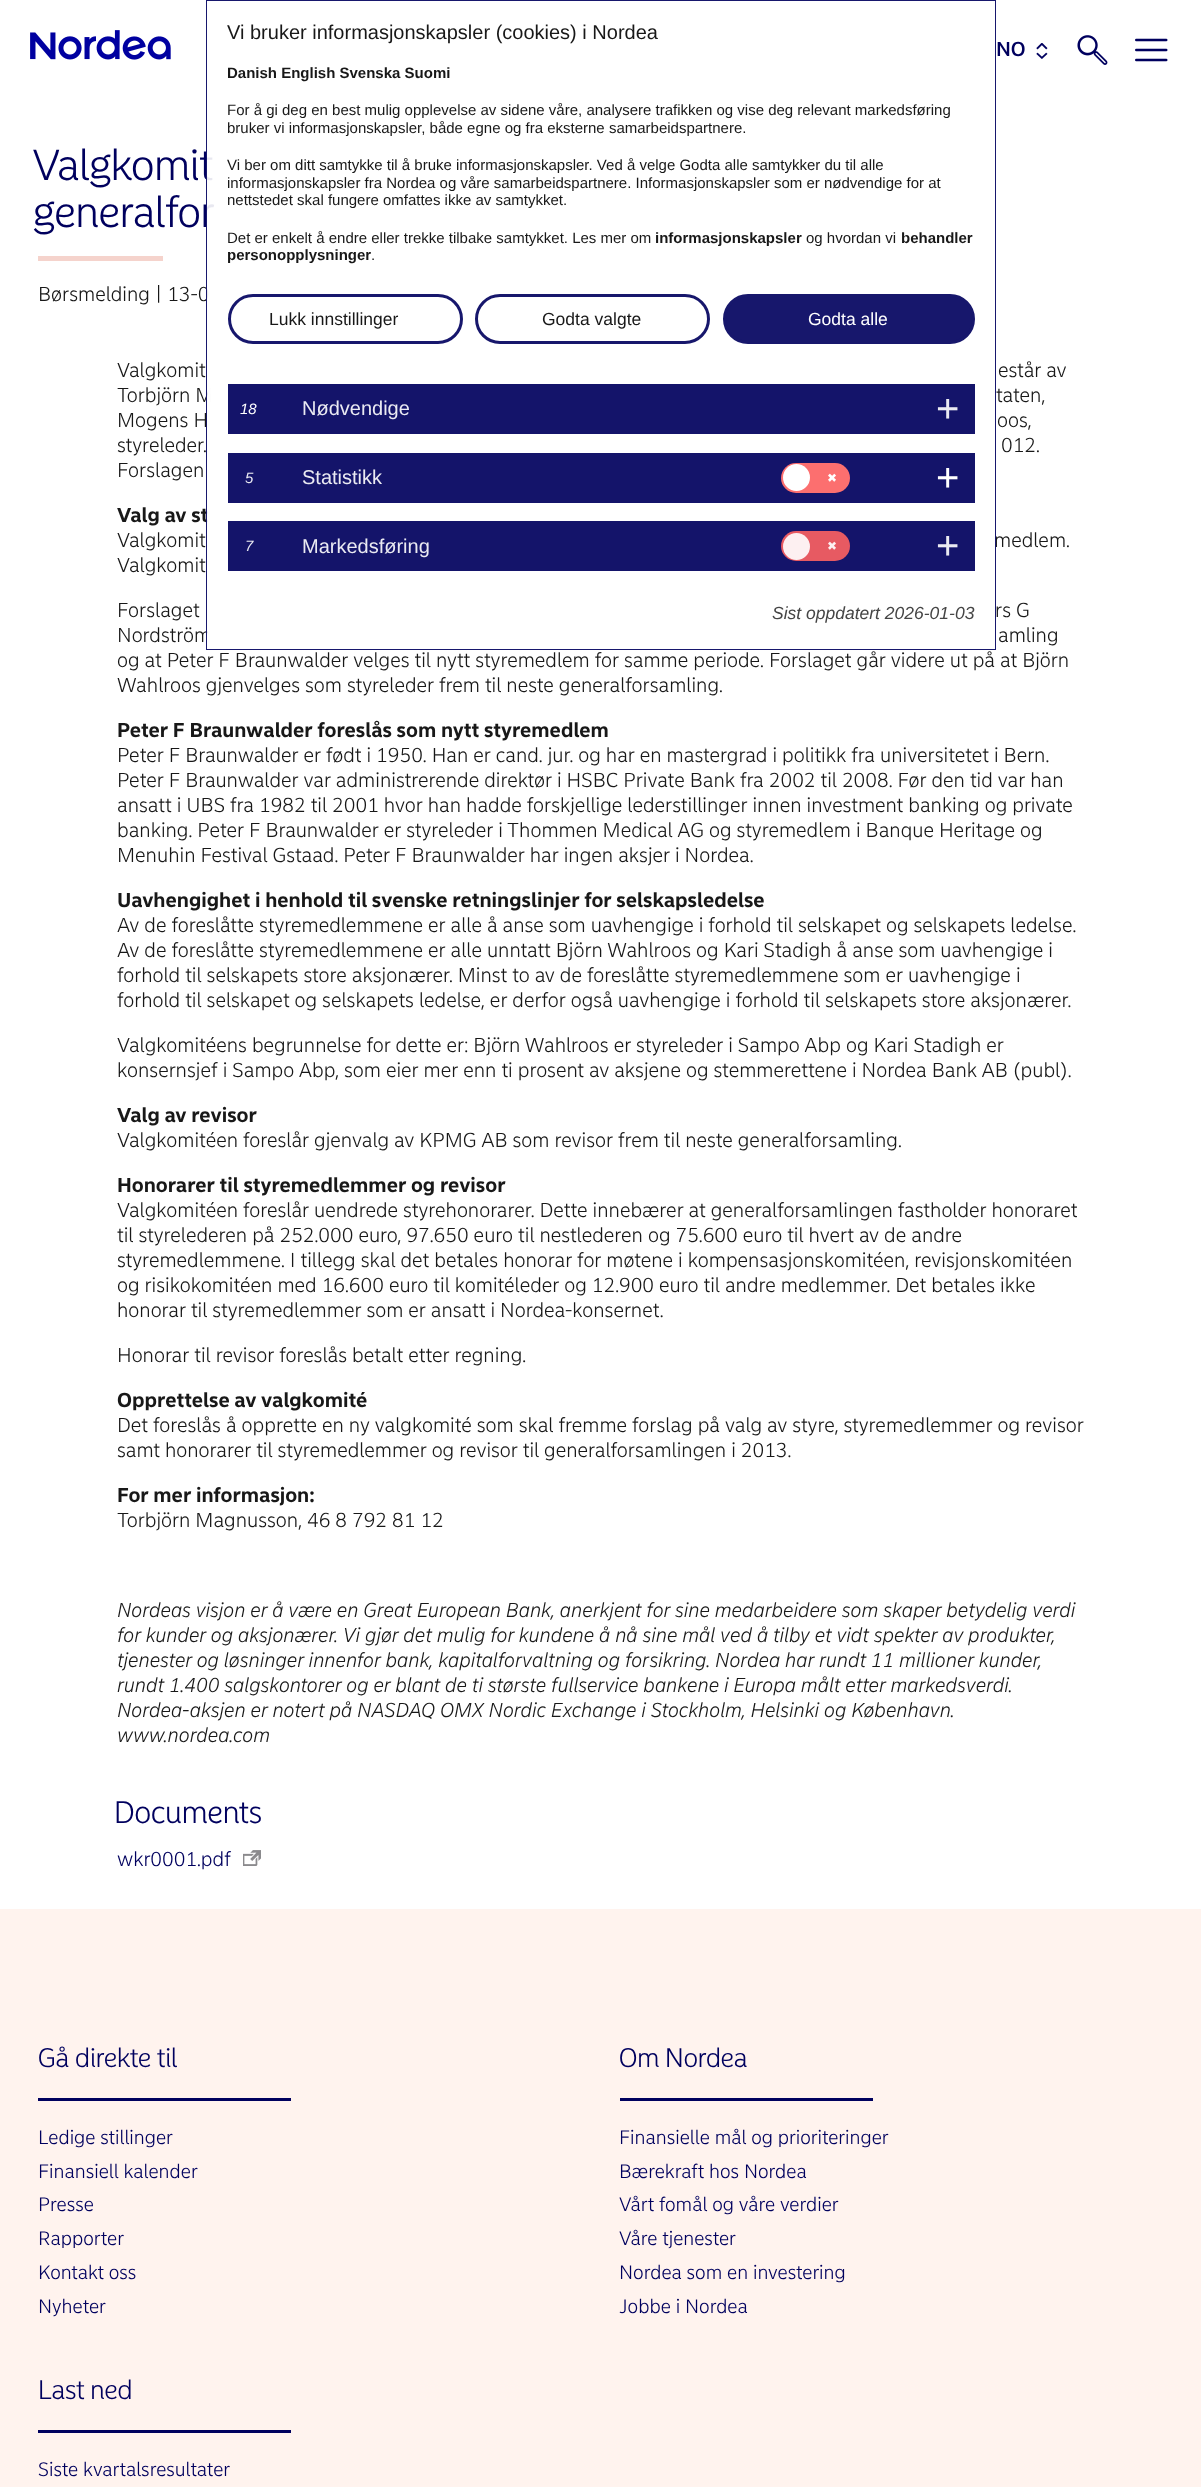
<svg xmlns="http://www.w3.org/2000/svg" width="1201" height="2487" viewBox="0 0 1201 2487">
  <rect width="100%" height="100%" fill="rgb(255,255,255)"/>
  <g font-family="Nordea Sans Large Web" font-size="43" font-weight="300" fill="rgb(0,0,94)">
    <text>
      <tspan x="33" y="180">Valgkomit</tspan>
      <tspan x="33" y="227">generalfor</tspan>
    </text>
  </g>
  <g font-family="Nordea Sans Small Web" font-size="20" font-weight="300" fill="rgb(24,24,24)">
    <text x="38" y="301">Børsmelding | 13-0</text>
    <text x="117" y="402">Torbjörn M</text>
  </g>
  <text x="117" y="522" font-family="Nordea Sans Small Web" font-size="20" font-weight="bold" fill="rgb(24,24,24)">Valg av st</text>
  <g font-family="Nordea Sans Small Web" font-size="20" font-weight="300" fill="rgb(24,24,24)">
    <text x="994" y="547">medlem.</text>
    <text x="117" y="642">Nordström</text>
  </g>
  <rect x="206" y="151" width="790" height="491" fill="rgba(255,255,255,0.91)"/>
  <rect x="206.5" y="0.5" width="789" height="649" fill="none" stroke="rgba(0,0,94,0.91)"/>
  <text x="227" y="39" font-family="Liberation Sans" font-size="20" fill="rgb(24,24,24)">Vi bruker informasjonskapsler (cookies) i Nordea</text>
  <text x="227" y="78" font-family="Liberation Sans" font-size="15" font-weight="bold" fill="rgb(24,24,24)">Danish English Svenska Suomi</text>
  <g font-family="Liberation Sans" font-size="15" fill="rgb(24,24,24)">
    <text>
      <tspan x="227" y="115">For å gi deg en best mulig opplevelse av sidene våre, analysere trafikken og vise deg relevant markedsføring</tspan>
      <tspan x="227" y="133">bruker vi informasjonskapsler, både egne og fra eksterne samarbeidspartnere.</tspan>
    </text>
    <text>
      <tspan x="227" y="170">Vi ber om ditt samtykke til å bruke informasjonskapsler. Ved å velge Godta alle samtykker du til alle</tspan>
      <tspan x="227" y="188">informasjonskapsler fra Nordea og våre samarbeidspartnere. Informasjonskapsler som er nødvendige for at</tspan>
      <tspan x="227" y="205">nettstedet skal fungere omfattes ikke av samtykket.</tspan>
    </text>
    <text x="227" y="243">Det er enkelt å endre eller trekke tilbake samtykket. Les mer om</text>
  </g>
  <text x="655" y="243" font-family="Liberation Sans" font-size="15" font-weight="bold" fill="rgb(24,24,24)">informasjonskapsler</text>
  <text x="806" y="243" font-family="Liberation Sans" font-size="15" fill="rgb(24,24,24)">og hvordan vi</text>
  <g font-family="Liberation Sans" font-size="15" font-weight="bold" fill="rgb(24,24,24)">
    <text x="901" y="243">behandler</text>
    <text x="227" y="260">personopplysninger</text>
  </g>
  <text x="371" y="260" font-family="Liberation Sans" font-size="15" fill="rgb(24,24,24)">.</text>
  <rect x="229.5" y="295.5" width="232" height="47" rx="23.5" fill="none" stroke="rgba(0,0,94,0.91)" stroke-width="3"/>
  <text x="269" y="325" font-family="Liberation Sans" font-size="17.5" fill="rgb(24,24,24)">Lukk innstillinger</text>
  <rect x="476.5" y="295.5" width="232" height="47" rx="23.5" fill="none" stroke="rgb(23,23,108)" stroke-width="3"/>
  <text x="542" y="325" font-family="Liberation Sans" font-size="17.5" fill="rgb(24,24,24)">Godta valgte</text>
  <rect x="724.5" y="295.5" width="249" height="47" rx="23.5" fill="rgb(23,23,108)" stroke="rgb(23,23,108)" stroke-width="3"/>
  <text x="808" y="325" font-family="Liberation Sans" font-size="17.5" fill="rgb(255,255,255)">Godta alle</text>
  <rect x="208" y="388" width="4" height="254" fill="rgba(255,255,255,0.91)"/>
  <rect x="228" y="384" width="747" height="50" fill="rgb(20,20,106)"/>
  <text x="240" y="414" font-family="Liberation Sans" font-size="15" font-style="italic" fill="rgb(255,255,255)">18</text>
  <text x="302" y="415" font-family="Liberation Sans" font-size="20" fill="rgb(234,234,242)">Nødvendige</text>
  <text x="936" y="422" font-family="Liberation Sans" font-size="40" fill="rgb(234,234,242)">+</text>
  <rect x="228" y="453" width="747" height="50" fill="rgb(20,20,106)"/>
  <text x="245" y="483" font-family="Liberation Sans" font-size="15" font-style="italic" fill="rgb(234,234,242)">5</text>
  <text x="302" y="484" font-family="Liberation Sans" font-size="20" fill="rgb(234,234,242)">Statistikk</text>
  <text x="936" y="491" font-family="Liberation Sans" font-size="40" fill="rgb(255,255,255)">+</text>
  <rect x="781" y="463" width="69" height="30" rx="15" fill="rgb(252,111,111)"/>
  <circle cx="796.5" cy="477.5" r="13.5" fill="rgb(255,255,255)"/>
  <text x="827" y="482" font-family="DejaVu Sans" font-size="12" fill="rgb(255,255,255)">✖</text>
  <rect x="228" y="521" width="747" height="50" fill="rgb(20,20,106)"/>
  <text x="245" y="551" font-family="Liberation Sans" font-size="15" font-style="italic" fill="rgb(234,234,242)">7</text>
  <text x="302" y="553" font-family="Liberation Sans" font-size="20" fill="rgb(234,234,242)">Markedsføring</text>
  <text x="936" y="559" font-family="Liberation Sans" font-size="40" fill="rgb(234,234,242)">+</text>
  <rect x="781" y="531" width="69" height="30" rx="15" fill="rgb(231,90,98)"/>
  <circle cx="796.5" cy="546.5" r="13.5" fill="rgb(253,240,241)"/>
  <text x="827" y="550" font-family="DejaVu Sans" font-size="12" fill="rgb(253,240,241)">✖</text>
  <text x="772" y="619" font-family="Liberation Sans" font-size="17.5" font-style="italic" fill="rgb(69,69,69)">Sist oppdatert 2026-01-03</text>
  <image x="30" y="30" width="141" height="30" href="pic1.png"/>
  <text x="996" y="56" font-family="Nordea Sans Small Web" font-size="20" font-weight="500" fill="rgb(0,0,94)">NO</text>
  <image x="1036" y="43" width="12" height="16" href="pic2.png"/>
  <image x="1077" y="35" width="31" height="30" href="pic3.png"/>
  <image x="1135" y="38" width="33" height="24" href="pic4.png"/>
  <rect x="38" y="256" width="125" height="5" fill="rgb(245,211,204)"/>
  <g font-family="Nordea Sans Small Web" font-size="20" font-weight="300" fill="rgb(24,24,24)">
    <text x="117" y="377">Valgkomit</text>
    <text x="998" y="377">estår av</text>
    <text x="996" y="402">taten,</text>
    <text x="117" y="427">Mogens H</text>
    <text x="997" y="427">oos,</text>
    <text x="117" y="452">styreleder.</text>
    <text x="1001" y="452">012.</text>
    <text x="117" y="477">Forslagen</text>
    <text>
      <tspan x="117" y="547">Valgkomit</tspan>
      <tspan x="117" y="572">Valgkomit</tspan>
    </text>
    <text x="117" y="617">Forslaget</text>
    <text x="995" y="617">rs G</text>
    <text x="998" y="642">amling</text>
    <text>
      <tspan x="117" y="667">og at Peter F Braunwalder velges til nytt styremedlem for samme periode. Forslaget går videre ut på at Björn</tspan>
      <tspan x="117" y="692">Wahlroos gjenvelges som styreleder frem til neste generalforsamling.</tspan>
    </text>
  </g>
  <text x="117" y="737" font-family="Nordea Sans Small Web" font-size="20" font-weight="bold" fill="rgb(24,24,24)">Peter F Braunwalder foreslås som nytt styremedlem</text>
  <g font-family="Nordea Sans Small Web" font-size="20" font-weight="300" fill="rgb(24,24,24)">
    <text>
      <tspan x="117" y="762">Peter F Braunwalder er født i 1950. Han er cand. jur. og har en mastergrad i politikk fra universitetet i Bern.</tspan>
      <tspan x="117" y="787">Peter F Braunwalder var administrerende direktør i HSBC Private Bank fra 2002 til 2008. Før den tid var han</tspan>
      <tspan x="117" y="812">ansatt i UBS fra 1982 til 2001 hvor han hadde forskjellige lederstillinger innen investment banking og private</tspan>
      <tspan x="117" y="837">banking. Peter F Braunwalder er styreleder i Thommen Medical AG og styremedlem i Banque Heritage og</tspan>
      <tspan x="117" y="862">Menuhin Festival Gstaad. Peter F Braunwalder har ingen aksjer i Nordea.</tspan>
    </text>
  </g>
  <text x="117" y="907" font-family="Nordea Sans Small Web" font-size="20" font-weight="bold" fill="rgb(24,24,24)">Uavhengighet i henhold til svenske retningslinjer for selskapsledelse</text>
  <g font-family="Nordea Sans Small Web" font-size="20" font-weight="300" fill="rgb(24,24,24)">
    <text>
      <tspan x="117" y="932">Av de foreslåtte styremedlemmene er alle å anse som uavhengige i forhold til selskapet og selskapets ledelse.</tspan>
      <tspan x="117" y="957">Av de foreslåtte styremedlemmene er alle unntatt Björn Wahlroos og Kari Stadigh å anse som uavhengige i</tspan>
      <tspan x="117" y="982">forhold til selskapets store aksjonærer. Minst to av de foreslåtte styremedlemmene som er uavhengige i</tspan>
      <tspan x="117" y="1007">forhold til selskapet og selskapets ledelse, er derfor også uavhengige i forhold til selskapets store aksjonærer.</tspan>
    </text>
    <text>
      <tspan x="117" y="1052">Valgkomitéens begrunnelse for dette er: Björn Wahlroos er styreleder i Sampo Abp og Kari Stadigh er</tspan>
      <tspan x="117" y="1077">konsernsjef i Sampo Abp, som eier mer enn ti prosent av aksjene og stemmerettene i Nordea Bank AB (publ).</tspan>
    </text>
  </g>
  <text x="117" y="1122" font-family="Nordea Sans Small Web" font-size="20" font-weight="bold" fill="rgb(24,24,24)">Valg av revisor</text>
  <text x="117" y="1147" font-family="Nordea Sans Small Web" font-size="20" font-weight="300" fill="rgb(24,24,24)">Valgkomitéen foreslår gjenvalg av KPMG AB som revisor frem til neste generalforsamling.</text>
  <text x="117" y="1192" font-family="Nordea Sans Small Web" font-size="20" font-weight="bold" fill="rgb(24,24,24)">Honorarer til styremedlemmer og revisor</text>
  <g font-family="Nordea Sans Small Web" font-size="20" font-weight="300" fill="rgb(24,24,24)">
    <text>
      <tspan x="117" y="1217">Valgkomitéen foreslår uendrede styrehonorarer. Dette innebærer at generalforsamlingen fastholder honoraret</tspan>
      <tspan x="117" y="1242">til styrelederen på 252.000 euro, 97.650 euro til nestlederen og 75.600 euro til hvert av de andre</tspan>
      <tspan x="117" y="1267">styremedlemmene. I tillegg skal det betales honorar for møtene i kompensasjonskomitéen, revisjonskomitéen</tspan>
      <tspan x="117" y="1292">og risikokomitéen med 16.600 euro til komitéleder og 12.900 euro til andre medlemmer. Det betales ikke</tspan>
      <tspan x="117" y="1317">honorar til styremedlemmer som er ansatt i Nordea-konsernet.</tspan>
    </text>
    <text x="117" y="1362">Honorar til revisor foreslås betalt etter regning.</text>
  </g>
  <text x="117" y="1407" font-family="Nordea Sans Small Web" font-size="20" font-weight="bold" fill="rgb(24,24,24)">Opprettelse av valgkomité</text>
  <g font-family="Nordea Sans Small Web" font-size="20" font-weight="300" fill="rgb(24,24,24)">
    <text>
      <tspan x="117" y="1432">Det foreslås å opprette en ny valgkomité som skal fremme forslag på valg av styre, styremedlemmer og revisor</tspan>
      <tspan x="117" y="1457">samt honorarer til styremedlemmer og revisor til generalforsamlingen i 2013.</tspan>
    </text>
  </g>
  <text x="117" y="1502" font-family="Nordea Sans Small Web" font-size="20" font-weight="bold" fill="rgb(24,24,24)">For mer informasjon:</text>
  <text x="117" y="1527" font-family="Nordea Sans Small Web" font-size="20" font-weight="300" fill="rgb(24,24,24)">Torbjörn Magnusson, 46 8 792 81 12</text>
  <g font-family="Nordea Sans Small Web" font-size="20" font-weight="300" font-style="italic" fill="rgb(24,24,24)">
    <text>
      <tspan x="117" y="1617">Nordeas visjon er å være en Great European Bank, anerkjent for sine medarbeidere som skaper betydelig verdi</tspan>
      <tspan x="117" y="1642">for kunder og aksjonærer. Vi gjør det mulig for kundene å nå sine mål ved å tilby et vidt spekter av produkter,</tspan>
      <tspan x="117" y="1667">tjenester og løsninger innenfor bank, kapitalforvaltning og forsikring. Nordea har rundt 11 millioner kunder,</tspan>
      <tspan x="117" y="1692">rundt 1.400 salgskontorer og er blant de ti største fullservice bankene i Europa målt etter markedsverdi.</tspan>
      <tspan x="117" y="1717">Nordea-aksjen er notert på NASDAQ OMX Nordic Exchange i Stockholm, Helsinki og København.</tspan>
      <tspan x="117" y="1742">www.nordea.com</tspan>
    </text>
  </g>
  <text x="114" y="1823" font-family="Nordea Sans Large Web" font-size="31" font-weight="300" fill="rgb(0,0,94)">Documents</text>
  <text x="117" y="1866" font-family="Nordea Sans Small Web" font-size="20" font-weight="300" fill="rgb(0,0,94)">wkr0001.pdf</text>
  <image x="243" y="1850" width="18" height="16" href="pic5.png"/>
  <rect x="0" y="1909" width="1201" height="578" fill="rgb(255,243,238)"/>
  <text x="38" y="2067" font-family="Nordea Sans Large Web" font-size="26.5" font-weight="300" fill="rgb(0,0,94)">Gå direkte til</text>
  <rect x="38" y="2098" width="253" height="3" fill="rgb(0,0,94)"/>
  <g font-family="Nordea Sans Small Web" font-size="19.3" font-weight="300" fill="rgb(0,0,94)">
    <text>
      <tspan x="38" y="2144">Ledige stillinger</tspan>
      <tspan x="38" y="2178">Finansiell kalender</tspan>
      <tspan x="38" y="2211">Presse</tspan>
      <tspan x="38" y="2245">Rapporter</tspan>
      <tspan x="38" y="2279">Kontakt oss</tspan>
      <tspan x="38" y="2313">Nyheter</tspan>
    </text>
  </g>
  <text x="619" y="2067" font-family="Nordea Sans Large Web" font-size="26.5" font-weight="300" fill="rgb(0,0,94)">Om Nordea</text>
  <rect x="620" y="2098" width="253" height="3" fill="rgb(0,0,94)"/>
  <g font-family="Nordea Sans Small Web" font-size="19.3" font-weight="300" fill="rgb(0,0,94)">
    <text>
      <tspan x="619" y="2144">Finansielle mål og prioriteringer</tspan>
      <tspan x="619" y="2178">Bærekraft hos Nordea</tspan>
      <tspan x="619" y="2211">Vårt fomål og våre verdier</tspan>
      <tspan x="619" y="2245">Våre tjenester</tspan>
      <tspan x="619" y="2279">Nordea som en investering</tspan>
      <tspan x="619" y="2313">Jobbe i Nordea</tspan>
    </text>
  </g>
  <text x="38" y="2399" font-family="Nordea Sans Large Web" font-size="26.5" font-weight="300" fill="rgb(0,0,94)">Last ned</text>
  <rect x="38" y="2430" width="253" height="3" fill="rgb(0,0,94)"/>
  <text x="38" y="2476" font-family="Nordea Sans Small Web" font-size="19.3" font-weight="300" fill="rgb(0,0,94)">Siste kvartalsresultater</text>
</svg>
